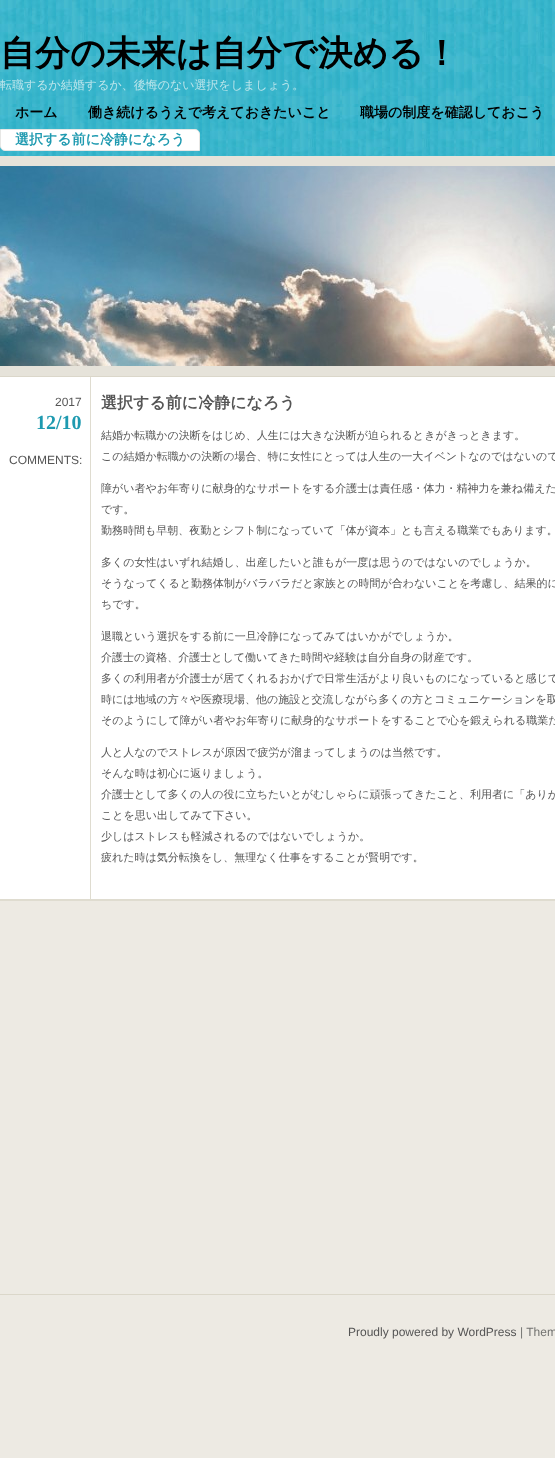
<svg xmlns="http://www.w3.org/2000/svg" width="555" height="1458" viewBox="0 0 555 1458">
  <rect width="100%" height="100%" fill="rgb(237,234,227)"/>
  <image x="0" y="0" width="555" height="156" href="pic1.png"/>
  <text x="0" y="65" font-family="WenQuanYi Zen Hei" font-size="35" font-weight="bold" fill="rgb(0,0,0)">自分の未来は自分で決める！</text>
  <text x="0" y="89" font-family="WenQuanYi Zen Hei" font-size="12" font-weight="500" fill="rgb(188,229,235)">転職するか結婚するか、後悔のない選択をしましょう。</text>
  <g font-family="WenQuanYi Zen Hei" font-size="14" font-weight="bold" fill="rgb(0,0,0)">
    <text x="15" y="117">ホーム</text>
    <text x="88" y="117">働き続けるうえで考えておきたいこと</text>
    <text x="360" y="117">職場の制度を確認しておこう</text>
  </g>
  <path d="M.5 129.5H195C197.5 129.5 199.5 131.5 199.5 134V150.5H5C2.5 150.5 .5 148.5 .5 146Z" fill="rgb(255,255,255)" stroke="rgb(231,231,229)"/>
  <text x="15" y="144" font-family="WenQuanYi Zen Hei" font-size="14" font-weight="bold" fill="rgb(30,154,176)">選択する前に冷静になろう</text>
  <rect x="0" y="156" width="555" height="220" fill="rgb(230,227,218)"/>
  <rect x="0" y="376" width="555" height="1" fill="rgb(219,215,202)"/>
  <image x="0" y="166" width="555" height="200" href="pic2.png"/>
  <rect x="0" y="377" width="555" height="522" fill="rgb(255,255,255)"/>
  <path d="M0 377H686C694 377 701 384 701 392V886C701 894 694 901 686 901H0ZM0 377H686C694 377 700 384 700 392V886C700 894 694 900 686 900H0Z" fill="rgb(223,220,208)" fill-rule="evenodd"/>
  <rect x="0" y="899" width="555" height="1" fill="rgb(223,220,208)"/>
  <text x="55" y="406" font-family="Liberation Sans" font-size="12" fill="rgb(85,85,85)">2017</text>
  <text x="36" y="429" font-family="Liberation Serif" font-size="20" font-weight="bold" fill="rgb(30,154,176)">12/10</text>
  <text x="9" y="464" font-family="Liberation Sans" font-size="12" fill="rgb(85,85,85)">COMMENTS:</text>
  <rect x="90" y="377" width="1" height="522" fill="rgb(223,220,208)"/>
  <text x="101" y="408" font-family="WenQuanYi Zen Hei" font-size="16" font-weight="bold" fill="rgb(85,85,85)">選択する前に冷静になろう</text>
  <g font-family="WenQuanYi Zen Hei" font-size="11" font-weight="500" fill="rgb(85,85,85)">
    <text>
      <tspan x="101" y="439">結婚か転職かの決断をはじめ、人生には大きな決断が迫られるときがきっときます。</tspan>
      <tspan x="101" y="460">この結婚か転職かの決断の場合、特に女性にとっては人生の一大イベントなのではないので</tspan>
    </text>
    <text>
      <tspan x="101" y="492">障がい者やお年寄りに献身的なサポートをする介護士は責任感・体力・精神力を兼ね備えた</tspan>
      <tspan x="101" y="513">です。</tspan>
      <tspan x="101" y="534">勤務時間も早朝、夜勤とシフト制になっていて「体が資本」とも言える職業でもあります。</tspan>
    </text>
    <text>
      <tspan x="101" y="566">多くの女性はいずれ結婚し、出産したいと誰もが一度は思うのではないのでしょうか。</tspan>
      <tspan x="101" y="587">そうなってくると勤務体制がバラバラだと家族との時間が合わないことを考慮し、結果的に</tspan>
      <tspan x="101" y="608">ちです。</tspan>
    </text>
    <text>
      <tspan x="101" y="640">退職という選択をする前に一旦冷静になってみてはいかがでしょうか。</tspan>
      <tspan x="101" y="661">介護士の資格、介護士として働いてきた時間や経験は自分自身の財産です。</tspan>
      <tspan x="101" y="682">多くの利用者が介護士が居てくれるおかげで日常生活がより良いものになっていると感じて</tspan>
      <tspan x="101" y="703">時には地域の方々や医療現場、他の施設と交流しながら多くの方とコミュニケーションを取</tspan>
      <tspan x="101" y="724">そのようにして障がい者やお年寄りに献身的なサポートをすることで心を鍛えられる職業だ</tspan>
    </text>
    <text>
      <tspan x="101" y="756">人と人なのでストレスが原因で疲労が溜まってしまうのは当然です。</tspan>
      <tspan x="101" y="777">そんな時は初心に返りましょう。</tspan>
      <tspan x="101" y="798">介護士として多くの人の役に立ちたいとがむしゃらに頑張ってきたこと、利用者に「ありが</tspan>
      <tspan x="101" y="819">ことを思い出してみて下さい。</tspan>
      <tspan x="101" y="840">少しはストレスも軽減されるのではないでしょうか。</tspan>
      <tspan x="101" y="861">疲れた時は気分転換をし、無理なく仕事をすることが賢明です。</tspan>
    </text>
  </g>
  <rect x="0" y="1294" width="555" height="1" fill="rgb(219,215,202)"/>
  <text x="348" y="1336" font-family="Liberation Sans" font-size="12" fill="rgb(85,85,85)">Proudly powered by WordPress</text>
  <text x="520" y="1336" font-family="Liberation Sans" font-size="12" fill="rgb(115,115,113)">| Them</text>
</svg>
